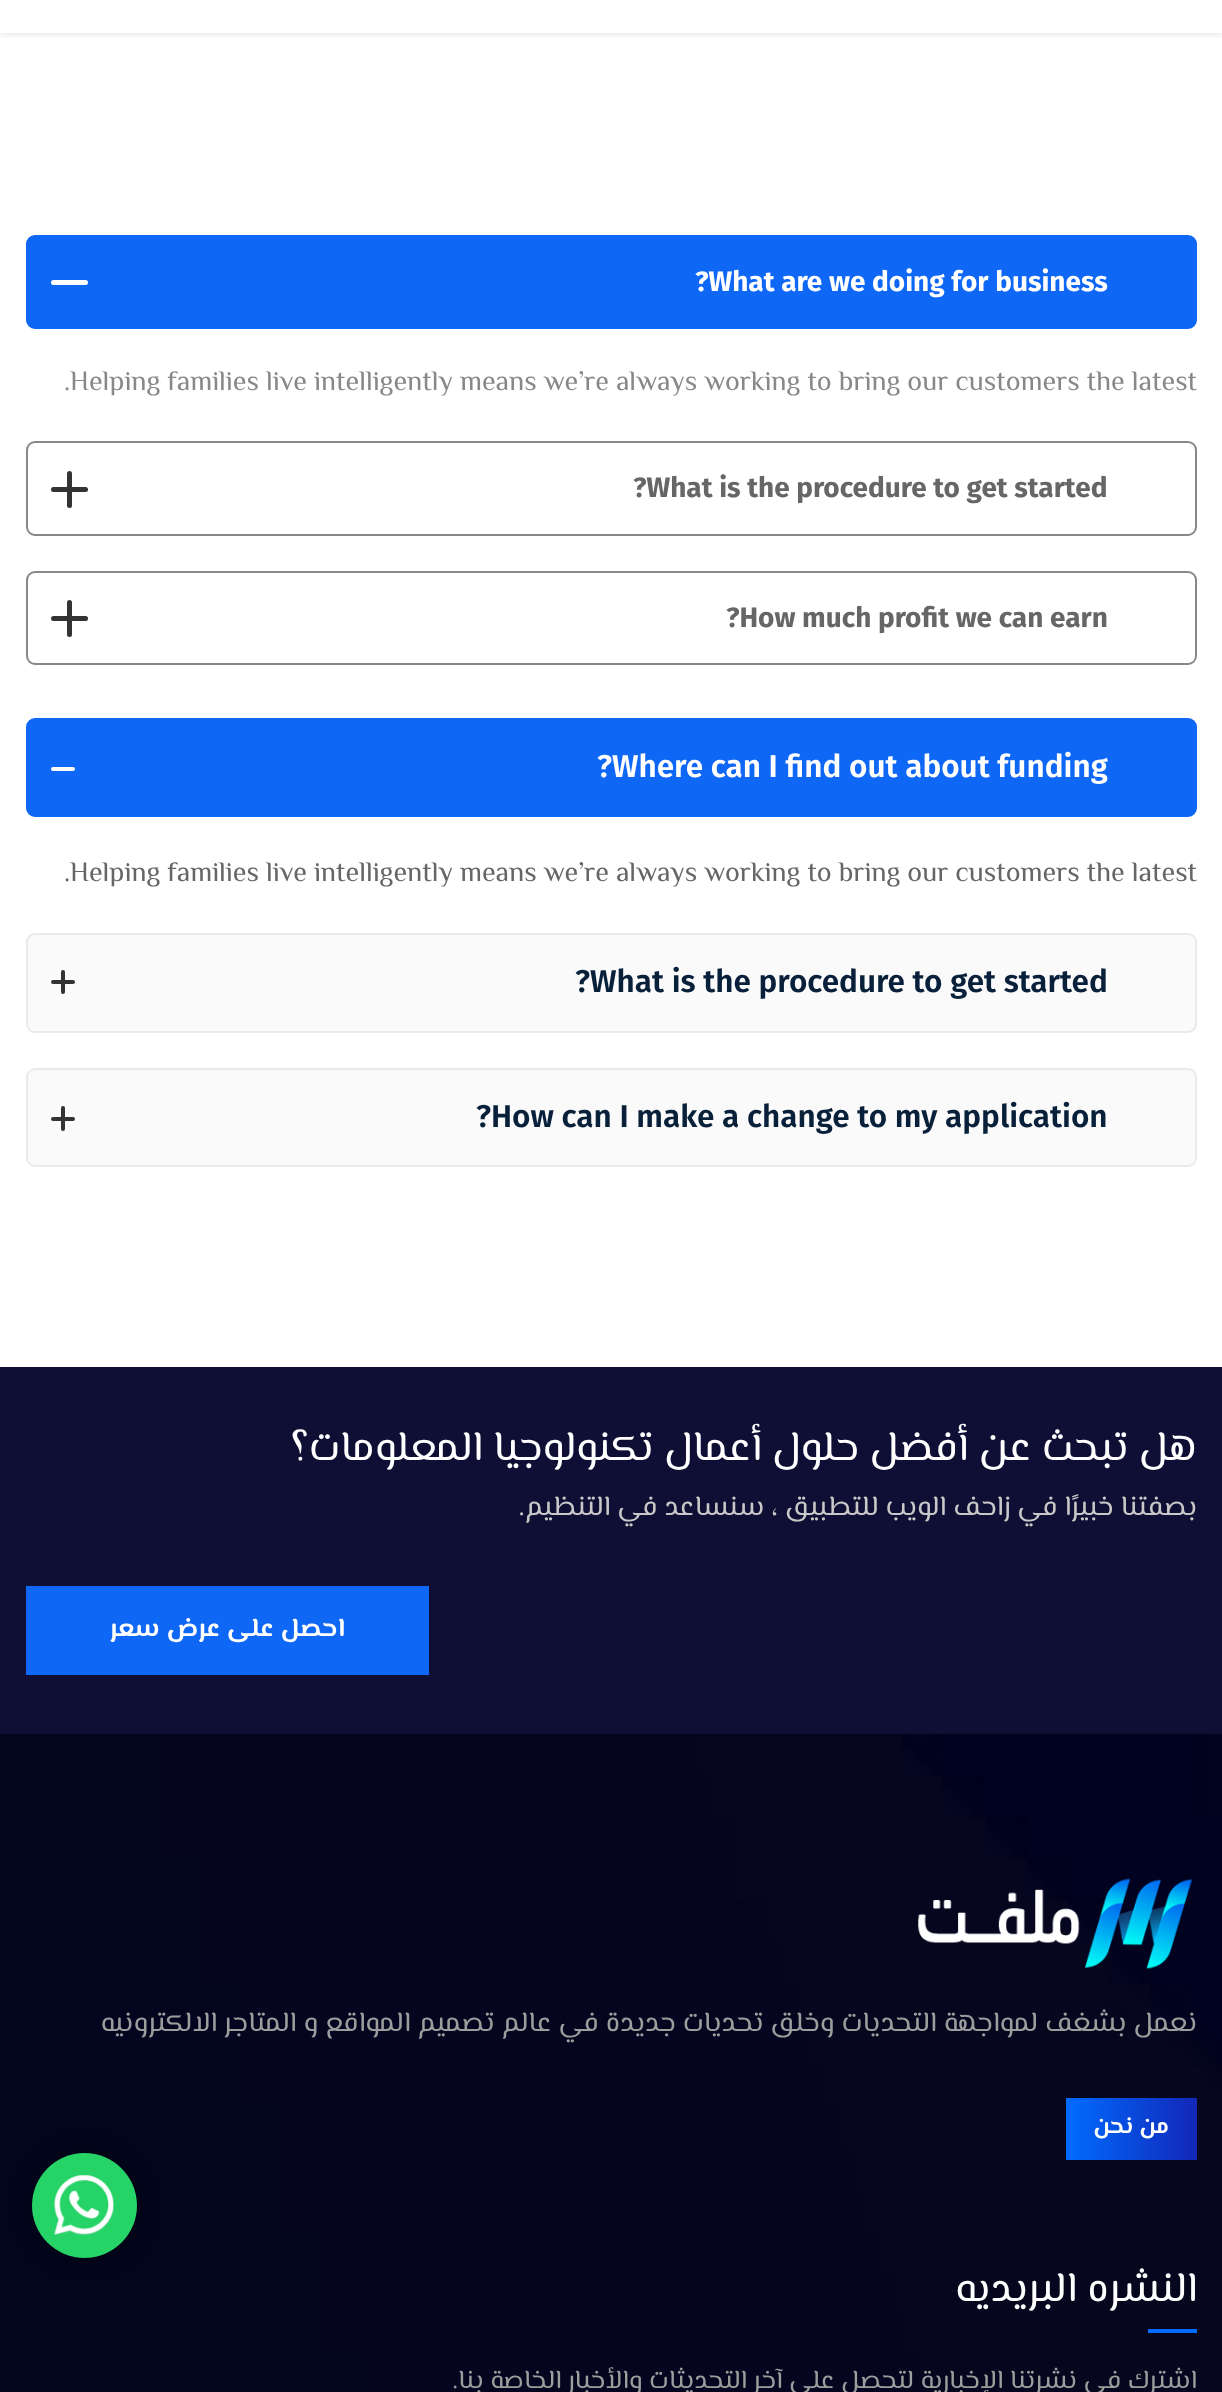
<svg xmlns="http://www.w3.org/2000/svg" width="1222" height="2392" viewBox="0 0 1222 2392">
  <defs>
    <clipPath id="clip1"><rect x="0" y="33" width="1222" height="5"/></clipPath>
    <linearGradient id="g1" gradientUnits="userSpaceOnUse" x1="1066" y1="2129" x2="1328" y2="2129"><stop offset="0" stop-color="rgb(0,108,255)"/><stop offset="0.5" stop-color="rgb(18,39,184)"/><stop offset="1" stop-color="rgb(0,108,255)"/></linearGradient>
  </defs>
  <rect width="100%" height="100%" fill="rgb(255,255,255)"/>
  <g clip-path="url(#clip1)">
    <rect x="0" y="-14" width="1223" height="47" fill="rgba(0,0,0,0.15)" filter="blur(4.5px)"/>
  </g>
  <rect x="27" y="236" width="1169" height="92" rx="8" fill="rgb(15,103,246)" stroke="rgb(15,103,246)" stroke-width="2"/>
  <rect x="51" y="280" width="37" height="5" rx="2.5" fill="rgb(255,255,255)"/>
  <text x="695" y="291" font-family="Fira Sans" font-size="28" font-weight="bold" fill="rgb(255,255,255)">?What are we doing for business</text>
  <text x="64" y="390" font-family="El Messiri" font-size="28" fill="rgb(136,136,136)">.Helping families live intelligently means we’re always working to bring our customers the latest</text>
  <rect x="27" y="442" width="1169" height="93" rx="8" fill="none" stroke="rgb(136,136,136)" stroke-width="2"/>
  <rect x="67" y="471" width="5" height="37" rx="2.5" fill="rgb(51,51,51)"/>
  <rect x="51" y="487" width="37" height="5" rx="2.5" fill="rgb(51,51,51)"/>
  <text x="633" y="497" font-family="Fira Sans" font-size="28" font-weight="bold" fill="rgb(102,102,102)">?What is the procedure to get started</text>
  <rect x="27" y="572" width="1169" height="92" rx="8" fill="none" stroke="rgb(136,136,136)" stroke-width="2"/>
  <rect x="67" y="600" width="5" height="37" rx="2.5" fill="rgb(51,51,51)"/>
  <rect x="51" y="616" width="37" height="5" rx="2.5" fill="rgb(51,51,51)"/>
  <text x="726" y="627" font-family="Fira Sans" font-size="28" font-weight="bold" fill="rgb(102,102,102)">?How much profit we can earn</text>
  <rect x="27" y="719" width="1169" height="97" rx="8" fill="rgb(15,103,246)" stroke="rgb(15,103,246)" stroke-width="2"/>
  <rect x="51" y="767" width="24" height="4" rx="2" fill="rgb(255,255,255)"/>
  <text x="597" y="777" font-family="Fira Sans" font-size="31.5" font-weight="600" fill="rgb(255,255,255)">?Where can I find out about funding</text>
  <text x="64" y="881" font-family="El Messiri" font-size="28" fill="rgb(102,102,102)">.Helping families live intelligently means we’re always working to bring our customers the latest</text>
  <rect x="27" y="934" width="1169" height="98" rx="8" fill="rgb(250,250,250)" stroke="rgb(234,234,234)" stroke-width="2"/>
  <rect x="61" y="970" width="4" height="24" rx="2" fill="rgb(51,51,51)"/>
  <rect x="51" y="980" width="24" height="4" rx="2" fill="rgb(51,51,51)"/>
  <text x="575" y="992" font-family="Fira Sans" font-size="31.5" font-weight="600" fill="rgb(8,32,58)">?What is the procedure to get started</text>
  <rect x="27" y="1069" width="1169" height="97" rx="8" fill="rgb(250,250,250)" stroke="rgb(234,234,234)" stroke-width="2"/>
  <rect x="61" y="1106" width="4" height="25" rx="2" fill="rgb(51,51,51)"/>
  <rect x="51" y="1117" width="24" height="4" rx="2" fill="rgb(51,51,51)"/>
  <text x="476" y="1127" font-family="Fira Sans" font-size="31.5" font-weight="600" fill="rgb(8,32,58)">?How can I make a change to my application</text>
  <rect x="0" y="1367" width="1222" height="367" fill="rgb(15,15,53)"/>
  <text x="1197" y="1460" font-family="El Messiri" font-size="42" direction="rtl" fill="rgb(255,255,255)">هل تبحث عن أفضل حلول أعمال تكنولوجيا المعلومات؟</text>
  <text x="1197" y="1515" font-family="El Messiri" font-size="28" direction="rtl" fill="rgb(201,200,200)">بصفتنا خبيرًا في زاحف الويب للتطبيق ، سنساعد في التنظيم.</text>
  <rect x="26" y="1586" width="403" height="89" fill="rgb(15,103,246)"/>
  <text x="345" y="1636" font-family="El Messiri" font-size="26.25" font-weight="bold" direction="rtl" fill="rgb(255,255,255)">احصل على عرض سعر</text>
  <image x="0" y="1734" width="1222" height="658" href="pic1.png"/>
  <image x="918" y="1878" width="275" height="91" href="pic2.png"/>
  <text x="1197" y="2031" font-family="El Messiri" font-size="28" direction="rtl" fill="rgb(157,157,157)">نعمل بشغف لمواجهة التحديات وخلق تحديات جديدة في عالم تصميم المواقع و المتاجر الالكترونيه</text>
  <rect x="1066" y="2098" width="131" height="62" fill="url(#g1)"/>
  <text x="1169" y="2133" font-family="El Messiri" font-size="23" font-weight="bold" direction="rtl" fill="rgb(255,255,255)">من نحن</text>
  <text x="1197" y="2301" font-family="El Messiri" font-size="42" direction="rtl" fill="rgb(255,255,255)">النشره البريديه</text>
  <rect x="1148" y="2329" width="49" height="4" fill="rgb(0,108,255)"/>
  <text x="1197" y="2388" font-family="El Messiri" font-size="26.25" direction="rtl" fill="rgb(157,157,157)">اشترك في نشرتنا الإخبارية لتحصل على آخر التحديثات والأخبار الخاصة بنا.</text>
  <rect x="32" y="2153" width="105" height="105" rx="52.5" fill="rgba(0,0,0,0.5)" filter="blur(9.5px)"/>
  <circle cx="84.5" cy="2205.5" r="52.5" fill="rgb(37,211,102)"/>
  <image x="54" y="2175" width="61" height="61" href="pic3.png"/>
</svg>
